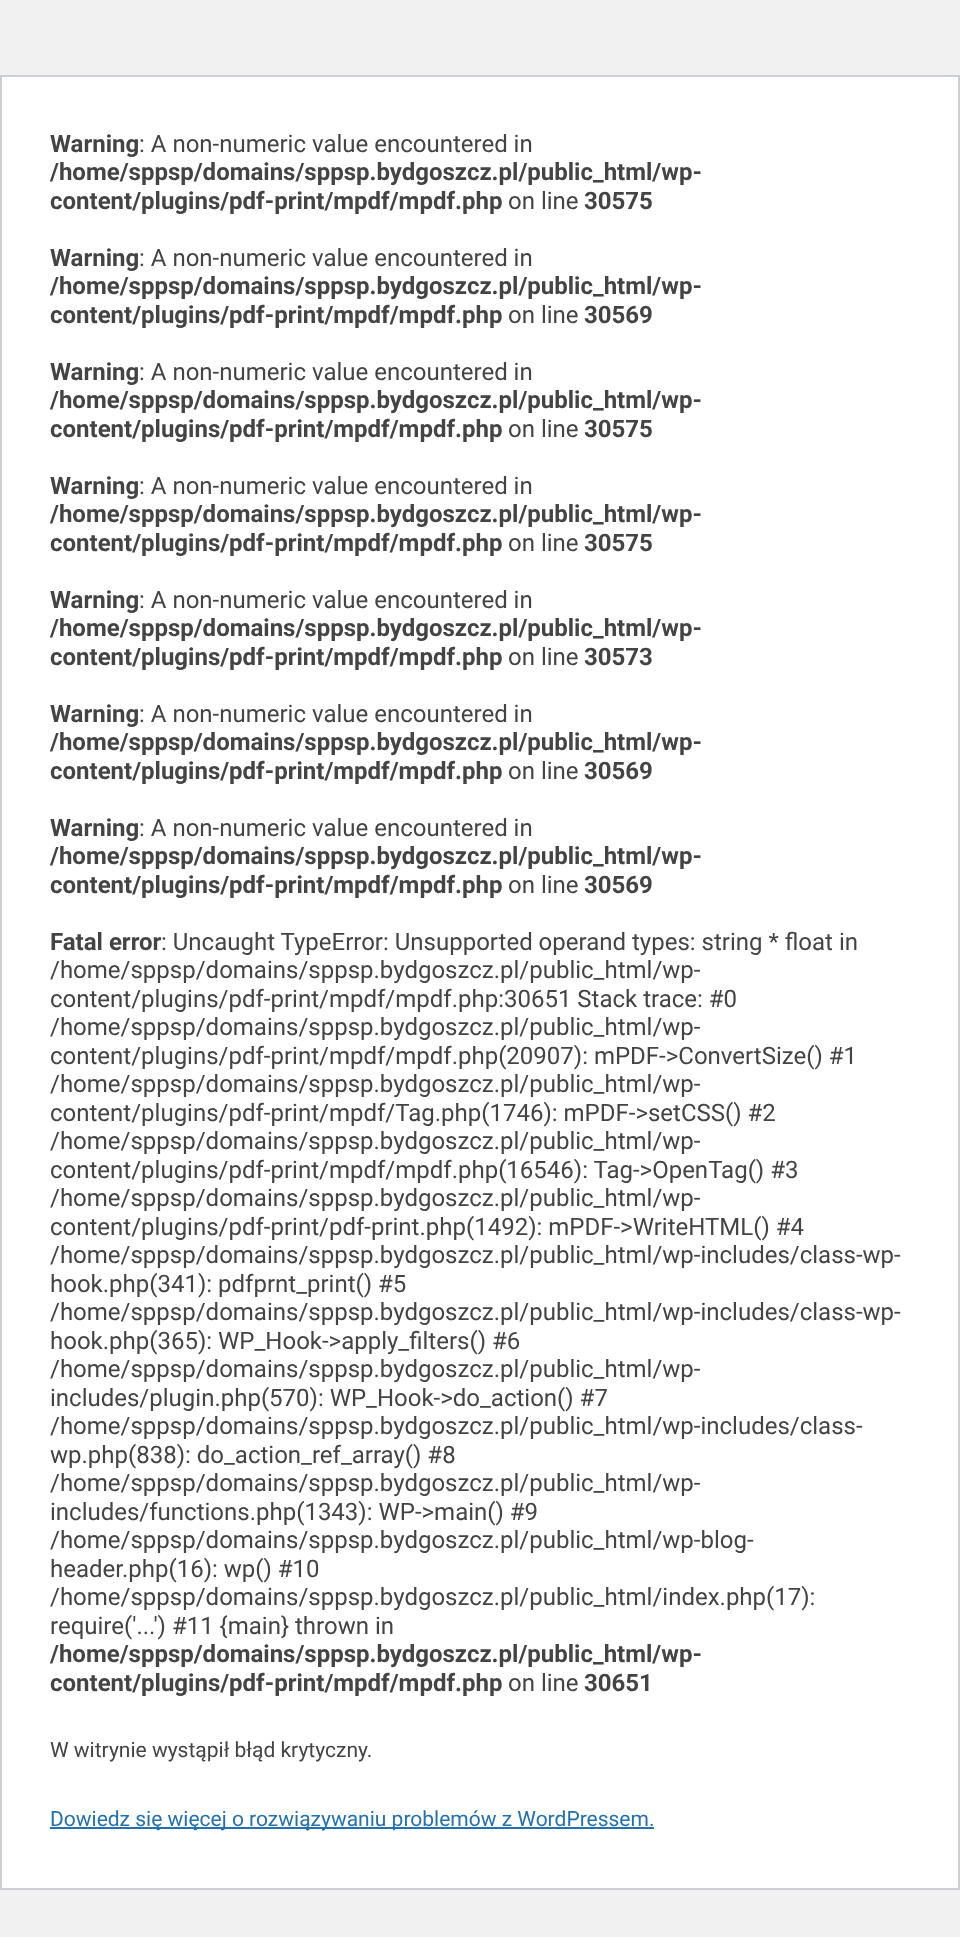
<svg xmlns="http://www.w3.org/2000/svg" width="960" height="1937" viewBox="0 0 960 1937">
  <rect width="100%" height="100%" fill="rgb(241,241,241)"/>
  <rect x="1" y="76" width="958" height="1813" fill="rgb(255,255,255)" stroke="rgb(204,208,212)" stroke-width="2"/>
  <text x="50" y="152" font-family="Roboto" font-size="24" font-weight="bold" fill="rgb(68,68,68)">Warning</text>
  <text x="139" y="152" font-family="Roboto" font-size="24" fill="rgb(68,68,68)">: A non-numeric value encountered in</text>
  <g font-family="Roboto" font-size="24" font-weight="bold" fill="rgb(68,68,68)">
    <text>
      <tspan x="50" y="180">/home/sppsp/domains/sppsp.bydgoszcz.pl/public_html/wp-</tspan>
      <tspan x="50" y="209">content/plugins/pdf-print/mpdf/mpdf.php</tspan>
    </text>
  </g>
  <text x="508" y="209" font-family="Roboto" font-size="24" fill="rgb(68,68,68)">on line</text>
  <g font-family="Roboto" font-size="24" font-weight="bold" fill="rgb(68,68,68)">
    <text x="584" y="209">30575</text>
    <text x="50" y="266">Warning</text>
  </g>
  <text x="139" y="266" font-family="Roboto" font-size="24" fill="rgb(68,68,68)">: A non-numeric value encountered in</text>
  <g font-family="Roboto" font-size="24" font-weight="bold" fill="rgb(68,68,68)">
    <text>
      <tspan x="50" y="294">/home/sppsp/domains/sppsp.bydgoszcz.pl/public_html/wp-</tspan>
      <tspan x="50" y="323">content/plugins/pdf-print/mpdf/mpdf.php</tspan>
    </text>
  </g>
  <text x="508" y="323" font-family="Roboto" font-size="24" fill="rgb(68,68,68)">on line</text>
  <g font-family="Roboto" font-size="24" font-weight="bold" fill="rgb(68,68,68)">
    <text x="584" y="323">30569</text>
    <text x="50" y="380">Warning</text>
  </g>
  <text x="139" y="380" font-family="Roboto" font-size="24" fill="rgb(68,68,68)">: A non-numeric value encountered in</text>
  <g font-family="Roboto" font-size="24" font-weight="bold" fill="rgb(68,68,68)">
    <text>
      <tspan x="50" y="408">/home/sppsp/domains/sppsp.bydgoszcz.pl/public_html/wp-</tspan>
      <tspan x="50" y="437">content/plugins/pdf-print/mpdf/mpdf.php</tspan>
    </text>
  </g>
  <text x="508" y="437" font-family="Roboto" font-size="24" fill="rgb(68,68,68)">on line</text>
  <g font-family="Roboto" font-size="24" font-weight="bold" fill="rgb(68,68,68)">
    <text x="584" y="437">30575</text>
    <text x="50" y="494">Warning</text>
  </g>
  <text x="139" y="494" font-family="Roboto" font-size="24" fill="rgb(68,68,68)">: A non-numeric value encountered in</text>
  <g font-family="Roboto" font-size="24" font-weight="bold" fill="rgb(68,68,68)">
    <text>
      <tspan x="50" y="522">/home/sppsp/domains/sppsp.bydgoszcz.pl/public_html/wp-</tspan>
      <tspan x="50" y="551">content/plugins/pdf-print/mpdf/mpdf.php</tspan>
    </text>
  </g>
  <text x="508" y="551" font-family="Roboto" font-size="24" fill="rgb(68,68,68)">on line</text>
  <g font-family="Roboto" font-size="24" font-weight="bold" fill="rgb(68,68,68)">
    <text x="584" y="551">30575</text>
    <text x="50" y="608">Warning</text>
  </g>
  <text x="139" y="608" font-family="Roboto" font-size="24" fill="rgb(68,68,68)">: A non-numeric value encountered in</text>
  <g font-family="Roboto" font-size="24" font-weight="bold" fill="rgb(68,68,68)">
    <text>
      <tspan x="50" y="636">/home/sppsp/domains/sppsp.bydgoszcz.pl/public_html/wp-</tspan>
      <tspan x="50" y="665">content/plugins/pdf-print/mpdf/mpdf.php</tspan>
    </text>
  </g>
  <text x="508" y="665" font-family="Roboto" font-size="24" fill="rgb(68,68,68)">on line</text>
  <g font-family="Roboto" font-size="24" font-weight="bold" fill="rgb(68,68,68)">
    <text x="584" y="665">30573</text>
    <text x="50" y="722">Warning</text>
  </g>
  <text x="139" y="722" font-family="Roboto" font-size="24" fill="rgb(68,68,68)">: A non-numeric value encountered in</text>
  <g font-family="Roboto" font-size="24" font-weight="bold" fill="rgb(68,68,68)">
    <text>
      <tspan x="50" y="750">/home/sppsp/domains/sppsp.bydgoszcz.pl/public_html/wp-</tspan>
      <tspan x="50" y="779">content/plugins/pdf-print/mpdf/mpdf.php</tspan>
    </text>
  </g>
  <text x="508" y="779" font-family="Roboto" font-size="24" fill="rgb(68,68,68)">on line</text>
  <g font-family="Roboto" font-size="24" font-weight="bold" fill="rgb(68,68,68)">
    <text x="584" y="779">30569</text>
    <text x="50" y="836">Warning</text>
  </g>
  <text x="139" y="836" font-family="Roboto" font-size="24" fill="rgb(68,68,68)">: A non-numeric value encountered in</text>
  <g font-family="Roboto" font-size="24" font-weight="bold" fill="rgb(68,68,68)">
    <text>
      <tspan x="50" y="864">/home/sppsp/domains/sppsp.bydgoszcz.pl/public_html/wp-</tspan>
      <tspan x="50" y="893">content/plugins/pdf-print/mpdf/mpdf.php</tspan>
    </text>
  </g>
  <text x="508" y="893" font-family="Roboto" font-size="24" fill="rgb(68,68,68)">on line</text>
  <g font-family="Roboto" font-size="24" font-weight="bold" fill="rgb(68,68,68)">
    <text x="584" y="893">30569</text>
    <text x="50" y="950">Fatal error</text>
  </g>
  <g font-family="Roboto" font-size="24" fill="rgb(68,68,68)">
    <text x="161" y="950">: Uncaught TypeError: Unsupported operand types: string * float in</text>
    <text>
      <tspan x="50" y="978">/home/sppsp/domains/sppsp.bydgoszcz.pl/public_html/wp-</tspan>
      <tspan x="50" y="1007">content/plugins/pdf-print/mpdf/mpdf.php:30651 Stack trace: #0</tspan>
      <tspan x="50" y="1035">/home/sppsp/domains/sppsp.bydgoszcz.pl/public_html/wp-</tspan>
      <tspan x="50" y="1064">content/plugins/pdf-print/mpdf/mpdf.php(20907): mPDF-&gt;ConvertSize() #1</tspan>
      <tspan x="50" y="1092">/home/sppsp/domains/sppsp.bydgoszcz.pl/public_html/wp-</tspan>
      <tspan x="50" y="1121">content/plugins/pdf-print/mpdf/Tag.php(1746): mPDF-&gt;setCSS() #2</tspan>
      <tspan x="50" y="1149">/home/sppsp/domains/sppsp.bydgoszcz.pl/public_html/wp-</tspan>
      <tspan x="50" y="1178">content/plugins/pdf-print/mpdf/mpdf.php(16546): Tag-&gt;OpenTag() #3</tspan>
      <tspan x="50" y="1206">/home/sppsp/domains/sppsp.bydgoszcz.pl/public_html/wp-</tspan>
      <tspan x="50" y="1235">content/plugins/pdf-print/pdf-print.php(1492): mPDF-&gt;WriteHTML() #4</tspan>
      <tspan x="50" y="1263">/home/sppsp/domains/sppsp.bydgoszcz.pl/public_html/wp-includes/class-wp-</tspan>
      <tspan x="50" y="1292">hook.php(341): pdfprnt_print() #5</tspan>
      <tspan x="50" y="1320">/home/sppsp/domains/sppsp.bydgoszcz.pl/public_html/wp-includes/class-wp-</tspan>
      <tspan x="50" y="1349">hook.php(365): WP_Hook-&gt;apply_filters() #6</tspan>
      <tspan x="50" y="1377">/home/sppsp/domains/sppsp.bydgoszcz.pl/public_html/wp-</tspan>
      <tspan x="50" y="1406">includes/plugin.php(570): WP_Hook-&gt;do_action() #7</tspan>
      <tspan x="50" y="1434">/home/sppsp/domains/sppsp.bydgoszcz.pl/public_html/wp-includes/class-</tspan>
      <tspan x="50" y="1463">wp.php(838): do_action_ref_array() #8</tspan>
      <tspan x="50" y="1491">/home/sppsp/domains/sppsp.bydgoszcz.pl/public_html/wp-</tspan>
      <tspan x="50" y="1520">includes/functions.php(1343): WP-&gt;main() #9</tspan>
      <tspan x="50" y="1548">/home/sppsp/domains/sppsp.bydgoszcz.pl/public_html/wp-blog-</tspan>
      <tspan x="50" y="1577">header.php(16): wp() #10</tspan>
      <tspan x="50" y="1605">/home/sppsp/domains/sppsp.bydgoszcz.pl/public_html/index.php(17):</tspan>
      <tspan x="50" y="1634">require('...') #11 {main} thrown in</tspan>
    </text>
  </g>
  <g font-family="Roboto" font-size="24" font-weight="bold" fill="rgb(68,68,68)">
    <text>
      <tspan x="50" y="1662">/home/sppsp/domains/sppsp.bydgoszcz.pl/public_html/wp-</tspan>
      <tspan x="50" y="1691">content/plugins/pdf-print/mpdf/mpdf.php</tspan>
    </text>
  </g>
  <text x="508" y="1691" font-family="Roboto" font-size="24" fill="rgb(68,68,68)">on line</text>
  <text x="584" y="1691" font-family="Roboto" font-size="24" font-weight="bold" fill="rgb(68,68,68)">30651</text>
  <text x="50" y="1757" font-family="Roboto" font-size="21" fill="rgb(68,68,68)">W witrynie wystąpił błąd krytyczny.</text>
  <rect x="50" y="1827" width="604" height="2" fill="rgb(34,113,177)"/>
  <text x="50" y="1826" font-family="Roboto" font-size="21" fill="rgb(34,113,177)">Dowiedz się więcej o rozwiązywaniu problemów z WordPressem.</text>
</svg>
